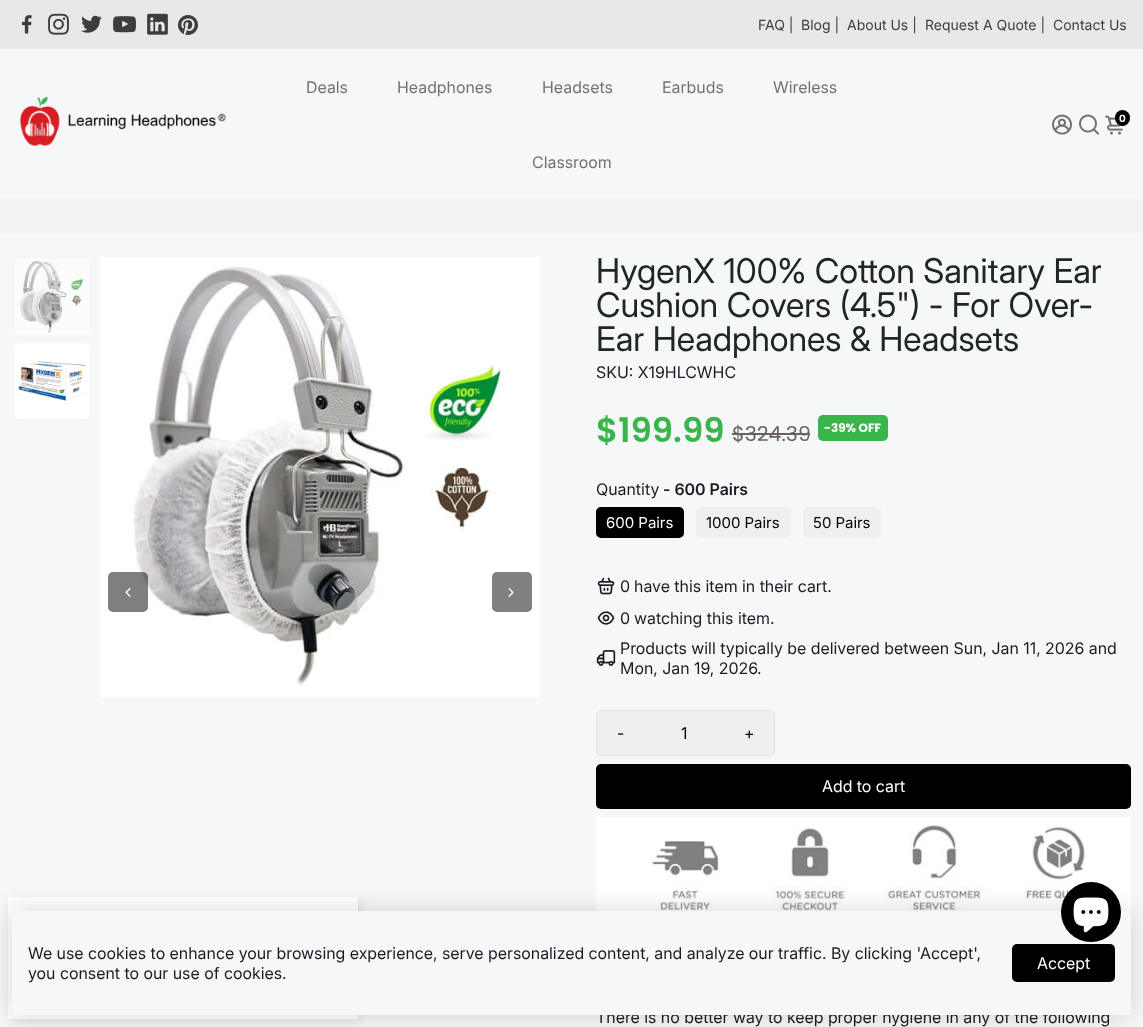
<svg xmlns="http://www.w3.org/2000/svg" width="1143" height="1027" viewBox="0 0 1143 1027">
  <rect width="100%" height="100%" fill="rgb(246,247,248)"/>
  <rect x="0" y="0" width="1143" height="49" fill="rgb(232,232,232)"/>
  <image x="22" y="15" width="10" height="19" href="pic1.png"/>
  <image x="48" y="13" width="21" height="22" href="pic2.png"/>
  <image x="81" y="15" width="21" height="18" href="pic3.png"/>
  <image x="113" y="16" width="23" height="17" href="pic4.png"/>
  <image x="147" y="13" width="21" height="22" href="pic5.png"/>
  <image x="178" y="15" width="20" height="20" href="pic6.png"/>
  <g font-family="Inter" font-size="14" fill="rgb(61,61,61)">
    <text x="758" y="30">FAQ |</text>
    <text x="801" y="30">Blog |</text>
    <text x="847" y="30">About Us |</text>
    <text x="925" y="30">Request A Quote |</text>
    <text x="1053" y="30">Contact Us</text>
  </g>
  <image x="20" y="97" width="206" height="50" href="pic7.png"/>
  <g font-family="'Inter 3'" font-size="16" fill="rgb(114,114,114)">
    <text x="306" y="93">Deals</text>
    <text x="397" y="93">Headphones</text>
    <text x="542" y="93">Headsets</text>
    <text x="662" y="93">Earbuds</text>
    <text x="773" y="93">Wireless</text>
    <text x="532" y="168">Classroom</text>
  </g>
  <image x="1052" y="114" width="20" height="21" href="pic8.png"/>
  <image x="1079" y="114" width="20" height="21" href="pic9.png"/>
  <image x="1105" y="115" width="18" height="20" href="pic10.png"/>
  <rect x="1115" y="110" width="15" height="16" rx="7.5" fill="rgb(0,0,0)"/>
  <text x="1119" y="122" font-family="Inter" font-size="10" font-weight="bold" fill="rgb(255,255,255)">0</text>
  <rect x="0" y="199" width="1143" height="34" fill="rgb(242,242,242)"/>
  <rect x="11" y="900" width="350" height="122" fill="rgba(0,0,0,0.08)" filter="blur(5px)"/>
  <rect x="8" y="897" width="350" height="122" fill="rgb(255,255,255)"/>
  <image x="14" y="259" width="76" height="76" href="pic11.png"/>
  <image x="14" y="343" width="76" height="76" href="pic12.png"/>
  <image x="100" y="257" width="440" height="440" href="pic13.png"/>
  <rect x="108" y="572" width="40" height="40" rx="5" fill="rgba(0,0,0,0.5)"/>
  <image x="125" y="588" width="6" height="9" href="pic14.png"/>
  <rect x="492" y="572" width="40" height="40" rx="5" fill="rgb(128,128,128)"/>
  <image x="508" y="588" width="6" height="9" href="pic15.png"/>
  <g font-family="'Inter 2'" font-size="34" fill="rgb(32,38,38)">
    <text>
      <tspan x="596" y="283">HygenX 100% Cotton Sanitary Ear</tspan>
      <tspan x="596" y="317">Cushion Covers (4.5") - For Over-</tspan>
      <tspan x="596" y="351">Ear Headphones &amp; Headsets</tspan>
    </text>
  </g>
  <text x="596" y="378" font-family="'Inter 3'" font-size="16" fill="rgb(25,29,33)">SKU: X19HLCWHC</text>
  <text x="596" y="442" font-family="Poppins" font-size="34" font-weight="600" fill="rgb(58,181,74)">$199.99</text>
  <text x="732" y="441" font-family="Poppins" font-size="20.5" fill="rgb(104,99,99)">$324.39</text>
  <rect x="732" y="433" width="78" height="2" fill="rgb(104,99,99)"/>
  <rect x="818" y="415" width="70" height="26" rx="5" fill="rgb(58,181,74)"/>
  <text x="824" y="432" font-family="Poppins" font-size="12" font-weight="bold" fill="rgb(255,255,255)">-39% OFF</text>
  <text x="596" y="495" font-family="'Inter 3'" font-size="16" fill="rgb(25,29,33)">Quantity</text>
  <text x="663" y="495" font-family="Inter" font-size="16" font-weight="600" fill="rgb(25,29,33)">- 600 Pairs</text>
  <rect x="597" y="508" width="86" height="29" rx="4" fill="rgb(0,0,0)" stroke="rgb(0,0,0)" stroke-width="2"/>
  <text x="606" y="528" font-family="'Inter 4'" font-size="15" fill="rgb(255,255,255)">600 Pairs</text>
  <rect x="696" y="507" width="95" height="31" rx="5" fill="rgb(239,239,239)"/>
  <text x="706" y="528" font-family="'Inter 4'" font-size="15" fill="rgb(0,0,0)">1000 Pairs</text>
  <rect x="803" y="507" width="78" height="31" rx="5" fill="rgb(239,239,239)"/>
  <text x="813" y="528" font-family="'Inter 4'" font-size="15" fill="rgb(0,0,0)">50 Pairs</text>
  <image x="597" y="577" width="18" height="18" href="pic16.png"/>
  <g font-family="'Inter 3'" font-size="16" fill="rgb(25,29,33)">
    <text x="620" y="592">0</text>
    <text x="634" y="592">have this item in their cart.</text>
  </g>
  <image x="597" y="611" width="18" height="14" href="pic17.png"/>
  <g font-family="'Inter 3'" font-size="16" fill="rgb(25,29,33)">
    <text x="620" y="624">0</text>
    <text x="634" y="624">watching this item.</text>
  </g>
  <image x="596" y="650" width="20" height="16" href="pic18.png"/>
  <g font-family="'Inter 3'" font-size="16" fill="rgb(25,29,33)">
    <text>
      <tspan x="620" y="654">Products will typically be delivered between Sun, Jan 11, 2026 and</tspan>
      <tspan x="620" y="674">Mon, Jan 19, 2026</tspan>
    </text>
    <text x="757" y="674">.</text>
  </g>
  <rect x="596.5" y="710.5" width="178" height="45" rx="4.5" fill="none" stroke="rgb(226,226,226)"/>
  <path d="M601 711H644V755H601C599 755 597 753 597 751V715C597 713 599 711 601 711Z" fill="rgb(239,239,239)"/>
  <text x="617" y="739" font-family="'Inter 3'" font-size="16" fill="rgb(0,0,0)">-</text>
  <rect x="644" y="711" width="80" height="44" fill="rgb(239,239,239)"/>
  <text x="681" y="739" font-family="'Inter 3'" font-size="16" fill="rgb(0,0,0)">1</text>
  <path d="M724 711H770C772 711 774 713 774 715V751C774 753 772 755 770 755H724Z" fill="rgb(239,239,239)"/>
  <text x="744" y="739" font-family="'Inter 3'" font-size="16" fill="rgb(0,0,0)">+</text>
  <rect x="596" y="764" width="535" height="45" rx="5" fill="rgb(0,0,0)"/>
  <text x="822" y="792" font-family="'Inter 3'" font-size="16" fill="rgb(255,255,255)">Add to cart</text>
  <image x="596" y="817" width="535" height="94" href="pic19.png"/>
  <text x="596" y="1023" font-family="'Inter 3'" font-size="16" fill="rgb(25,29,33)">There is no better way to keep proper hygiene in any of the following</text>
  <rect x="12" y="911" width="1119" height="104" fill="rgba(0,0,0,0.16)" filter="blur(12px)"/>
  <rect x="12" y="911" width="1119" height="104" fill="rgb(246,247,248)"/>
  <circle cx="1091" cy="912" r="30" fill="rgb(0,0,0)"/>
  <image x="1073" y="897" width="36" height="36" href="pic20.png"/>
  <g font-family="'Inter 3'" font-size="16" fill="rgb(25,29,33)">
    <text>
      <tspan x="28" y="959">We use cookies to enhance your browsing experience, serve personalized content, and analyze our traffic. By clicking 'Accept',</tspan>
      <tspan x="28" y="979">you consent to our use of cookies.</tspan>
    </text>
  </g>
  <rect x="1012" y="944" width="103" height="38" rx="5" fill="rgb(0,0,0)"/>
  <text x="1037" y="969" font-family="'Inter 3'" font-size="16" fill="rgb(255,255,255)">Accept</text>
</svg>
